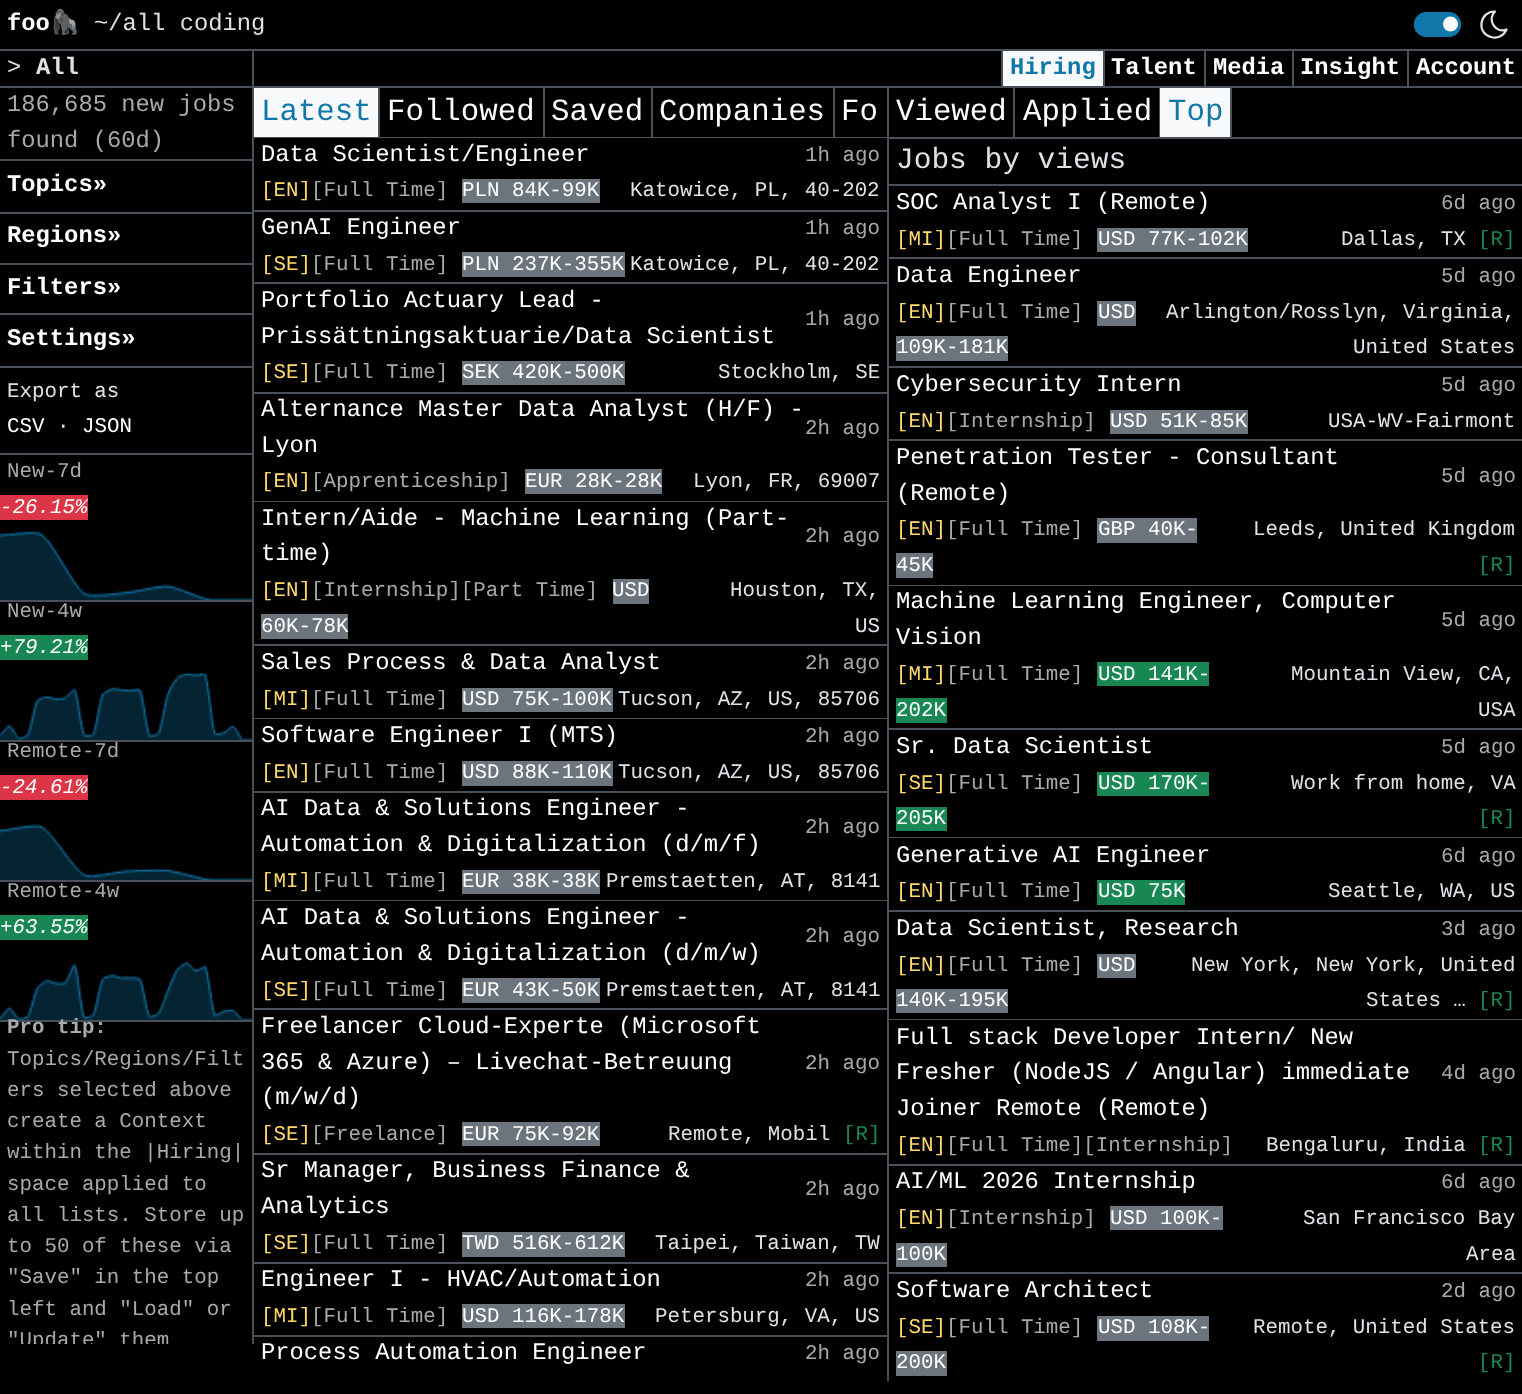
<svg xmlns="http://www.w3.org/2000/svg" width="1522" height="1394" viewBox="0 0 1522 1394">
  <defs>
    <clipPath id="clip1"><rect x="0" y="51" width="252" height="1293"/></clipPath>
  </defs>
  <rect width="100%" height="100%" fill="rgb(0,0,0)"/>
  <rect x="0" y="49" width="1522" height="2" fill="rgb(73,80,87)"/>
  <text x="7" y="30" font-family="Liberation Mono" font-size="23.8" font-weight="bold" fill="rgb(255,255,255)">foo</text>
  <text x="50" y="30" font-family="Noto Color Emoji" font-size="23.8" font-weight="bold" fill="rgb(255,255,255)">🦍</text>
  <text x="94" y="30" font-family="Liberation Mono" font-size="23.8" fill="rgb(222,226,230)">~/all coding</text>
  <rect x="1414" y="12" width="47" height="25" rx="12.5" fill="rgb(16,119,170)"/>
  <circle cx="1450.5" cy="24" r="7.5" fill="rgb(255,255,255)"/>
  <rect x="1415" y="13" width="45" height="23" rx="11.5" fill="none" stroke="rgb(16,119,170)" stroke-width="2"/>
  <path d="M1494.5 11.5H1495C1486.5 19.5 1495.5 34 1506.5 29.5C1504 35.5 1497.5 39 1491 37C1484.5 35.5 1480.5 29.5 1481.5 23C1482.5 16 1488 11.5 1494.5 11.5Z" fill="none" stroke="rgb(222,226,230)" stroke-width="2.2" stroke-linecap="round" stroke-linejoin="round"/>
  <rect x="252" y="51" width="2" height="1293" fill="rgb(73,80,87)"/>
  <rect x="0" y="86" width="252" height="2" fill="rgb(73,80,87)"/>
  <text x="7" y="74" font-family="Liberation Mono" font-size="23.8" fill="rgb(222,226,230)">&gt;</text>
  <text x="36" y="74" font-family="Liberation Mono" font-size="23.8" font-weight="bold" fill="rgb(222,226,230)">All</text>
  <rect x="0" y="159" width="252" height="2" fill="rgb(73,80,87)"/>
  <g font-family="Liberation Mono" font-size="23.8" fill="rgb(167,170,173)">
    <text>
      <tspan x="7" y="111">186,685 new jobs</tspan>
      <tspan x="7" y="147">found (60d)</tspan>
    </text>
  </g>
  <rect x="0" y="212" width="252" height="2" fill="rgb(73,80,87)"/>
  <text x="7" y="191" font-family="Liberation Mono" font-size="23.8" font-weight="bold" fill="rgb(255,255,255)">Topics»</text>
  <rect x="0" y="263" width="252" height="2" fill="rgb(73,80,87)"/>
  <text x="7" y="242" font-family="Liberation Mono" font-size="23.8" font-weight="bold" fill="rgb(255,255,255)">Regions»</text>
  <rect x="0" y="313" width="252" height="2" fill="rgb(73,80,87)"/>
  <text x="7" y="294" font-family="Liberation Mono" font-size="23.8" font-weight="bold" fill="rgb(255,255,255)">Filters»</text>
  <rect x="0" y="366" width="252" height="2" fill="rgb(73,80,87)"/>
  <text x="7" y="345" font-family="Liberation Mono" font-size="23.8" font-weight="bold" fill="rgb(255,255,255)">Settings»</text>
  <rect x="0" y="453" width="252" height="2" fill="rgb(73,80,87)"/>
  <text x="7" y="397" font-family="Liberation Mono" font-size="20.8" fill="rgb(222,226,230)">Export as</text>
  <text x="7" y="432" font-family="Liberation Mono" font-size="20.8" fill="rgb(255,255,255)">CSV</text>
  <text x="57" y="432" font-family="Liberation Mono" font-size="20.8" fill="rgb(222,226,230)">·</text>
  <text x="82" y="432" font-family="Liberation Mono" font-size="20.8" fill="rgb(255,255,255)">JSON</text>
  <text x="7" y="477" font-family="Liberation Mono" font-size="20.8" fill="rgb(167,170,173)">New-7d</text>
  <rect x="0" y="495" width="88" height="25" fill="rgb(220,53,69)"/>
  <text x="0" y="513" font-family="Liberation Mono" font-size="20.8" font-style="italic" fill="rgb(255,255,255)">-26.15%</text>
  <rect x="0" y="600" width="252" height="2" fill="rgb(73,80,87)"/>
  <image x="0" y="531" width="252" height="69" href="pic1.png"/>
  <text x="7" y="617" font-family="Liberation Mono" font-size="20.8" fill="rgb(167,170,173)">New-4w</text>
  <rect x="0" y="635" width="88" height="25" fill="rgb(25,135,84)"/>
  <text x="0" y="653" font-family="Liberation Mono" font-size="20.8" font-style="italic" fill="rgb(255,255,255)">+79.21%</text>
  <rect x="0" y="740" width="252" height="2" fill="rgb(73,80,87)"/>
  <image x="0" y="672" width="252" height="68" href="pic2.png"/>
  <text x="7" y="757" font-family="Liberation Mono" font-size="20.8" fill="rgb(167,170,173)">Remote-7d</text>
  <rect x="0" y="775" width="88" height="25" fill="rgb(220,53,69)"/>
  <text x="0" y="793" font-family="Liberation Mono" font-size="20.8" font-style="italic" fill="rgb(255,255,255)">-24.61%</text>
  <rect x="0" y="880" width="252" height="2" fill="rgb(73,80,87)"/>
  <image x="0" y="824" width="252" height="56" href="pic3.png"/>
  <text x="7" y="897" font-family="Liberation Mono" font-size="20.8" fill="rgb(167,170,173)">Remote-4w</text>
  <rect x="0" y="915" width="88" height="25" fill="rgb(25,135,84)"/>
  <text x="0" y="933" font-family="Liberation Mono" font-size="20.8" font-style="italic" fill="rgb(255,255,255)">+63.55%</text>
  <rect x="0" y="1020" width="252" height="2" fill="rgb(73,80,87)"/>
  <image x="0" y="961" width="252" height="59" href="pic4.png"/>
  <text x="7" y="1033" font-family="Liberation Mono" font-size="20.8" font-weight="bold" fill="rgb(167,170,173)">Pro tip:</text>
  <g font-family="Liberation Mono" font-size="20.8" fill="rgb(167,170,173)">
    <text>
      <tspan x="7" y="1065">Topics/Regions/Filt</tspan>
      <tspan x="7" y="1096">ers selected above</tspan>
      <tspan x="7" y="1127">create a Context</tspan>
      <tspan x="7" y="1158">within the |Hiring|</tspan>
      <tspan x="7" y="1190">space applied to</tspan>
      <tspan x="7" y="1221">all lists. Store up</tspan>
      <tspan x="7" y="1252">to 50 of these via</tspan>
      <tspan x="7" y="1283">"Save" in the top</tspan>
      <tspan x="7" y="1315">left and "Load" or</tspan>
    </text>
  </g>
  <g clip-path="url(#clip1)">
    <text x="7" y="1346" font-family="Liberation Mono" font-size="20.8" fill="rgb(167,170,173)">"Update" them</text>
  </g>
  <rect x="254" y="86" width="1268" height="2" fill="rgb(73,80,87)"/>
  <rect x="1003" y="51" width="100" height="35" fill="rgb(248,249,250)"/>
  <rect x="1001" y="51" width="2" height="35" fill="rgb(73,80,87)"/>
  <text x="1010" y="74" font-family="Liberation Mono" font-size="23.8" font-weight="bold" fill="rgb(16,119,170)">Hiring</text>
  <rect x="1103" y="51" width="2" height="35" fill="rgb(73,80,87)"/>
  <text x="1111" y="74" font-family="Liberation Mono" font-size="23.8" font-weight="bold" fill="rgb(255,255,255)">Talent</text>
  <rect x="1204" y="51" width="2" height="35" fill="rgb(73,80,87)"/>
  <text x="1213" y="74" font-family="Liberation Mono" font-size="23.8" font-weight="bold" fill="rgb(255,255,255)">Media</text>
  <rect x="1292" y="51" width="2" height="35" fill="rgb(73,80,87)"/>
  <text x="1300" y="74" font-family="Liberation Mono" font-size="23.8" font-weight="bold" fill="rgb(255,255,255)">Insight</text>
  <rect x="1407" y="51" width="2" height="35" fill="rgb(73,80,87)"/>
  <text x="1416" y="74" font-family="Liberation Mono" font-size="23.8" font-weight="bold" fill="rgb(255,255,255)">Account</text>
  <rect x="887" y="88" width="2" height="1293" fill="rgb(73,80,87)"/>
  <rect x="254" y="137" width="633" height="1" fill="rgb(73,80,87)"/>
  <rect x="254" y="88" width="124" height="49" fill="rgb(248,249,250)"/>
  <rect x="378" y="88" width="2" height="49" fill="rgb(73,80,87)"/>
  <text x="261" y="120" font-family="Liberation Mono" font-size="30.75" fill="rgb(16,119,170)">Latest</text>
  <rect x="543" y="88" width="2" height="49" fill="rgb(73,80,87)"/>
  <text x="387" y="120" font-family="Liberation Mono" font-size="30.75" fill="rgb(255,255,255)">Followed</text>
  <rect x="651" y="88" width="2" height="49" fill="rgb(73,80,87)"/>
  <text x="551" y="120" font-family="Liberation Mono" font-size="30.75" fill="rgb(255,255,255)">Saved</text>
  <rect x="833" y="88" width="2" height="49" fill="rgb(73,80,87)"/>
  <g font-family="Liberation Mono" font-size="30.75" fill="rgb(255,255,255)">
    <text x="659" y="120">Companies</text>
    <text x="841" y="120">Fo</text>
  </g>
  <rect x="254" y="210" width="633" height="2" fill="rgb(73,80,87)"/>
  <text x="261" y="161" font-family="Liberation Mono" font-size="23.8" fill="rgb(255,255,255)">Data Scientist/Engineer</text>
  <text x="805" y="161" font-family="Liberation Mono" font-size="20.8" fill="rgb(167,170,173)">1h ago</text>
  <text x="261" y="196" font-family="Liberation Mono" font-size="20.8" fill="rgb(255,218,106)">[EN]</text>
  <text x="311" y="196" font-family="Liberation Mono" font-size="20.8" fill="rgb(167,170,173)">[Full Time]</text>
  <rect x="462" y="179" width="138" height="24" fill="rgb(108,117,125)"/>
  <text x="462" y="196" font-family="Liberation Mono" font-size="20.8" fill="rgb(255,255,255)">PLN 84K-99K</text>
  <text x="630" y="196" font-family="Liberation Mono" font-size="20.8" fill="rgb(222,226,230)">Katowice, PL, 40-202</text>
  <rect x="254" y="282" width="633" height="2" fill="rgb(73,80,87)"/>
  <text x="261" y="234" font-family="Liberation Mono" font-size="23.8" fill="rgb(255,255,255)">GenAI Engineer</text>
  <text x="805" y="234" font-family="Liberation Mono" font-size="20.8" fill="rgb(167,170,173)">1h ago</text>
  <text x="261" y="270" font-family="Liberation Mono" font-size="20.8" fill="rgb(255,218,106)">[SE]</text>
  <text x="311" y="270" font-family="Liberation Mono" font-size="20.8" fill="rgb(167,170,173)">[Full Time]</text>
  <rect x="462" y="252" width="163" height="25" fill="rgb(108,117,125)"/>
  <text x="462" y="270" font-family="Liberation Mono" font-size="20.8" fill="rgb(255,255,255)">PLN 237K-355K</text>
  <text x="630" y="270" font-family="Liberation Mono" font-size="20.8" fill="rgb(222,226,230)">Katowice, PL, 40-202</text>
  <rect x="254" y="392" width="633" height="2" fill="rgb(73,80,87)"/>
  <g font-family="Liberation Mono" font-size="23.8" fill="rgb(255,255,255)">
    <text>
      <tspan x="261" y="307">Portfolio Actuary Lead -</tspan>
      <tspan x="261" y="343">Prissättningsaktuarie/Data Scientist</tspan>
    </text>
  </g>
  <text x="805" y="325" font-family="Liberation Mono" font-size="20.8" fill="rgb(167,170,173)">1h ago</text>
  <text x="261" y="378" font-family="Liberation Mono" font-size="20.8" fill="rgb(255,218,106)">[SE]</text>
  <text x="311" y="378" font-family="Liberation Mono" font-size="20.8" fill="rgb(167,170,173)">[Full Time]</text>
  <rect x="462" y="361" width="163" height="24" fill="rgb(108,117,125)"/>
  <text x="462" y="378" font-family="Liberation Mono" font-size="20.8" fill="rgb(255,255,255)">SEK 420K-500K</text>
  <text x="718" y="378" font-family="Liberation Mono" font-size="20.8" fill="rgb(222,226,230)">Stockholm, SE</text>
  <rect x="254" y="501" width="633" height="1" fill="rgb(73,80,87)"/>
  <g font-family="Liberation Mono" font-size="23.8" fill="rgb(255,255,255)">
    <text>
      <tspan x="261" y="416">Alternance Master Data Analyst (H/F) -</tspan>
      <tspan x="261" y="452">Lyon</tspan>
    </text>
  </g>
  <text x="805" y="434" font-family="Liberation Mono" font-size="20.8" fill="rgb(167,170,173)">2h ago</text>
  <text x="261" y="487" font-family="Liberation Mono" font-size="20.8" fill="rgb(255,218,106)">[EN]</text>
  <text x="311" y="487" font-family="Liberation Mono" font-size="20.8" fill="rgb(167,170,173)">[Apprenticeship]</text>
  <rect x="525" y="469" width="137" height="25" fill="rgb(108,117,125)"/>
  <text x="525" y="487" font-family="Liberation Mono" font-size="20.8" fill="rgb(255,255,255)">EUR 28K-28K</text>
  <text x="693" y="487" font-family="Liberation Mono" font-size="20.8" fill="rgb(222,226,230)">Lyon, FR, 69007</text>
  <rect x="254" y="644" width="633" height="2" fill="rgb(73,80,87)"/>
  <g font-family="Liberation Mono" font-size="23.8" fill="rgb(255,255,255)">
    <text>
      <tspan x="261" y="525">Intern/Aide - Machine Learning (Part-</tspan>
      <tspan x="261" y="560">time)</tspan>
    </text>
  </g>
  <text x="805" y="542" font-family="Liberation Mono" font-size="20.8" fill="rgb(167,170,173)">2h ago</text>
  <text x="261" y="596" font-family="Liberation Mono" font-size="20.8" fill="rgb(255,218,106)">[EN]</text>
  <text x="311" y="596" font-family="Liberation Mono" font-size="20.8" fill="rgb(167,170,173)">[Internship][Part Time]</text>
  <rect x="613" y="579" width="36" height="25" fill="rgb(108,117,125)"/>
  <text x="612" y="596" font-family="Liberation Mono" font-size="20.8" fill="rgb(255,255,255)">USD</text>
  <rect x="261" y="614" width="87" height="25" fill="rgb(108,117,125)"/>
  <text x="261" y="632" font-family="Liberation Mono" font-size="20.8" fill="rgb(255,255,255)">60K-78K</text>
  <g font-family="Liberation Mono" font-size="20.8" fill="rgb(222,226,230)">
    <text x="730" y="596">Houston, TX,</text>
    <text x="855" y="632">US</text>
  </g>
  <rect x="254" y="718" width="633" height="1" fill="rgb(73,80,87)"/>
  <text x="261" y="669" font-family="Liberation Mono" font-size="23.8" fill="rgb(255,255,255)">Sales Process &amp; Data Analyst</text>
  <text x="805" y="669" font-family="Liberation Mono" font-size="20.8" fill="rgb(167,170,173)">2h ago</text>
  <text x="261" y="705" font-family="Liberation Mono" font-size="20.8" fill="rgb(255,218,106)">[MI]</text>
  <text x="311" y="705" font-family="Liberation Mono" font-size="20.8" fill="rgb(167,170,173)">[Full Time]</text>
  <rect x="462" y="688" width="151" height="24" fill="rgb(108,117,125)"/>
  <text x="462" y="705" font-family="Liberation Mono" font-size="20.8" fill="rgb(255,255,255)">USD 75K-100K</text>
  <text x="618" y="705" font-family="Liberation Mono" font-size="20.8" fill="rgb(222,226,230)">Tucson, AZ, US, 85706</text>
  <rect x="254" y="791" width="633" height="2" fill="rgb(73,80,87)"/>
  <text x="261" y="742" font-family="Liberation Mono" font-size="23.8" fill="rgb(255,255,255)">Software Engineer I (MTS)</text>
  <text x="805" y="742" font-family="Liberation Mono" font-size="20.8" fill="rgb(167,170,173)">2h ago</text>
  <text x="261" y="778" font-family="Liberation Mono" font-size="20.8" fill="rgb(255,218,106)">[EN]</text>
  <text x="311" y="778" font-family="Liberation Mono" font-size="20.8" fill="rgb(167,170,173)">[Full Time]</text>
  <rect x="462" y="761" width="151" height="25" fill="rgb(108,117,125)"/>
  <text x="462" y="778" font-family="Liberation Mono" font-size="20.8" fill="rgb(255,255,255)">USD 88K-110K</text>
  <text x="618" y="778" font-family="Liberation Mono" font-size="20.8" fill="rgb(222,226,230)">Tucson, AZ, US, 85706</text>
  <rect x="254" y="900" width="633" height="1" fill="rgb(73,80,87)"/>
  <g font-family="Liberation Mono" font-size="23.8" fill="rgb(255,255,255)">
    <text>
      <tspan x="261" y="815">AI Data &amp; Solutions Engineer -</tspan>
      <tspan x="261" y="851">Automation &amp; Digitalization (d/m/f)</tspan>
    </text>
  </g>
  <text x="805" y="833" font-family="Liberation Mono" font-size="20.8" fill="rgb(167,170,173)">2h ago</text>
  <text x="261" y="887" font-family="Liberation Mono" font-size="20.8" fill="rgb(255,218,106)">[MI]</text>
  <text x="311" y="887" font-family="Liberation Mono" font-size="20.8" fill="rgb(167,170,173)">[Full Time]</text>
  <rect x="462" y="870" width="138" height="24" fill="rgb(108,117,125)"/>
  <text x="462" y="887" font-family="Liberation Mono" font-size="20.8" fill="rgb(255,255,255)">EUR 38K-38K</text>
  <text x="606" y="887" font-family="Liberation Mono" font-size="20.8" fill="rgb(222,226,230)">Premstaetten, AT, 8141</text>
  <rect x="254" y="1008" width="633" height="2" fill="rgb(73,80,87)"/>
  <g font-family="Liberation Mono" font-size="23.8" fill="rgb(255,255,255)">
    <text>
      <tspan x="261" y="924">AI Data &amp; Solutions Engineer -</tspan>
      <tspan x="261" y="960">Automation &amp; Digitalization (d/m/w)</tspan>
    </text>
  </g>
  <text x="805" y="942" font-family="Liberation Mono" font-size="20.8" fill="rgb(167,170,173)">2h ago</text>
  <text x="261" y="996" font-family="Liberation Mono" font-size="20.8" fill="rgb(255,218,106)">[SE]</text>
  <text x="311" y="996" font-family="Liberation Mono" font-size="20.8" fill="rgb(167,170,173)">[Full Time]</text>
  <rect x="462" y="978" width="138" height="25" fill="rgb(108,117,125)"/>
  <text x="462" y="996" font-family="Liberation Mono" font-size="20.8" fill="rgb(255,255,255)">EUR 43K-50K</text>
  <text x="606" y="996" font-family="Liberation Mono" font-size="20.8" fill="rgb(222,226,230)">Premstaetten, AT, 8141</text>
  <rect x="254" y="1153" width="633" height="2" fill="rgb(73,80,87)"/>
  <g font-family="Liberation Mono" font-size="23.8" fill="rgb(255,255,255)">
    <text>
      <tspan x="261" y="1033">Freelancer Cloud-Experte (Microsoft</tspan>
      <tspan x="261" y="1069">365 &amp; Azure) – Livechat-Betreuung</tspan>
      <tspan x="261" y="1104">(m/w/d)</tspan>
    </text>
  </g>
  <text x="805" y="1069" font-family="Liberation Mono" font-size="20.8" fill="rgb(167,170,173)">2h ago</text>
  <text x="261" y="1140" font-family="Liberation Mono" font-size="20.8" fill="rgb(255,218,106)">[SE]</text>
  <text x="311" y="1140" font-family="Liberation Mono" font-size="20.8" fill="rgb(167,170,173)">[Freelance]</text>
  <rect x="462" y="1122" width="138" height="24" fill="rgb(108,117,125)"/>
  <text x="462" y="1140" font-family="Liberation Mono" font-size="20.8" fill="rgb(255,255,255)">EUR 75K-92K</text>
  <text x="668" y="1140" font-family="Liberation Mono" font-size="20.8" fill="rgb(222,226,230)">Remote, Mobil</text>
  <text x="843" y="1140" font-family="Liberation Mono" font-size="20.8" fill="rgb(25,135,84)">[R]</text>
  <rect x="254" y="1262" width="633" height="2" fill="rgb(73,80,87)"/>
  <g font-family="Liberation Mono" font-size="23.8" fill="rgb(255,255,255)">
    <text>
      <tspan x="261" y="1177">Sr Manager, Business Finance &amp;</tspan>
      <tspan x="261" y="1213">Analytics</tspan>
    </text>
  </g>
  <text x="805" y="1195" font-family="Liberation Mono" font-size="20.8" fill="rgb(167,170,173)">2h ago</text>
  <text x="261" y="1249" font-family="Liberation Mono" font-size="20.8" fill="rgb(255,218,106)">[SE]</text>
  <text x="311" y="1249" font-family="Liberation Mono" font-size="20.8" fill="rgb(167,170,173)">[Full Time]</text>
  <rect x="462" y="1232" width="163" height="25" fill="rgb(108,117,125)"/>
  <text x="462" y="1249" font-family="Liberation Mono" font-size="20.8" fill="rgb(255,255,255)">TWD 516K-612K</text>
  <text x="655" y="1249" font-family="Liberation Mono" font-size="20.8" fill="rgb(222,226,230)">Taipei, Taiwan, TW</text>
  <rect x="254" y="1335" width="633" height="2" fill="rgb(73,80,87)"/>
  <text x="261" y="1286" font-family="Liberation Mono" font-size="23.8" fill="rgb(255,255,255)">Engineer I - HVAC/Automation</text>
  <text x="805" y="1286" font-family="Liberation Mono" font-size="20.8" fill="rgb(167,170,173)">2h ago</text>
  <text x="261" y="1322" font-family="Liberation Mono" font-size="20.8" fill="rgb(255,218,106)">[MI]</text>
  <text x="311" y="1322" font-family="Liberation Mono" font-size="20.8" fill="rgb(167,170,173)">[Full Time]</text>
  <rect x="462" y="1304" width="163" height="24" fill="rgb(108,117,125)"/>
  <text x="462" y="1322" font-family="Liberation Mono" font-size="20.8" fill="rgb(255,255,255)">USD 116K-178K</text>
  <text x="655" y="1322" font-family="Liberation Mono" font-size="20.8" fill="rgb(222,226,230)">Petersburg, VA, US</text>
  <text x="261" y="1359" font-family="Liberation Mono" font-size="23.8" fill="rgb(255,255,255)">Process Automation Engineer</text>
  <text x="805" y="1359" font-family="Liberation Mono" font-size="20.8" fill="rgb(167,170,173)">2h ago</text>
  <rect x="889" y="137" width="633" height="2" fill="rgb(73,80,87)"/>
  <rect x="1013" y="88" width="2" height="49" fill="rgb(73,80,87)"/>
  <text x="896" y="120" font-family="Liberation Mono" font-size="30.75" fill="rgb(255,255,255)">Viewed</text>
  <rect x="1159" y="88" width="1" height="49" fill="rgb(73,80,87)"/>
  <text x="1023" y="120" font-family="Liberation Mono" font-size="30.75" fill="rgb(255,255,255)">Applied</text>
  <rect x="1160" y="88" width="70" height="49" fill="rgb(248,249,250)"/>
  <rect x="1230" y="88" width="2" height="49" fill="rgb(73,80,87)"/>
  <text x="1168" y="120" font-family="Liberation Mono" font-size="30.75" fill="rgb(16,119,170)">Top</text>
  <rect x="889" y="184" width="633" height="2" fill="rgb(73,80,87)"/>
  <text x="896" y="168" font-family="Liberation Mono" font-size="29.5" fill="rgb(222,226,230)">Jobs by views</text>
  <rect x="889" y="257" width="633" height="2" fill="rgb(73,80,87)"/>
  <text x="896" y="209" font-family="Liberation Mono" font-size="23.8" fill="rgb(255,255,255)">SOC Analyst I (Remote)</text>
  <text x="1441" y="209" font-family="Liberation Mono" font-size="20.8" fill="rgb(167,170,173)">6d ago</text>
  <text x="896" y="245" font-family="Liberation Mono" font-size="20.8" fill="rgb(255,218,106)">[MI]</text>
  <text x="946" y="245" font-family="Liberation Mono" font-size="20.8" fill="rgb(167,170,173)">[Full Time]</text>
  <rect x="1097" y="228" width="151" height="24" fill="rgb(108,117,125)"/>
  <text x="1098" y="245" font-family="Liberation Mono" font-size="20.8" fill="rgb(255,255,255)">USD 77K-102K</text>
  <text x="1341" y="245" font-family="Liberation Mono" font-size="20.8" fill="rgb(222,226,230)">Dallas, TX</text>
  <text x="1478" y="245" font-family="Liberation Mono" font-size="20.8" fill="rgb(25,135,84)">[R]</text>
  <rect x="889" y="366" width="633" height="2" fill="rgb(73,80,87)"/>
  <text x="896" y="282" font-family="Liberation Mono" font-size="23.8" fill="rgb(255,255,255)">Data Engineer</text>
  <text x="1441" y="282" font-family="Liberation Mono" font-size="20.8" fill="rgb(167,170,173)">5d ago</text>
  <text x="896" y="318" font-family="Liberation Mono" font-size="20.8" fill="rgb(255,218,106)">[EN]</text>
  <text x="946" y="318" font-family="Liberation Mono" font-size="20.8" fill="rgb(167,170,173)">[Full Time]</text>
  <rect x="1097" y="301" width="39" height="25" fill="rgb(108,117,125)"/>
  <text x="1098" y="318" font-family="Liberation Mono" font-size="20.8" fill="rgb(255,255,255)">USD</text>
  <rect x="896" y="336" width="112" height="25" fill="rgb(108,117,125)"/>
  <text x="896" y="353" font-family="Liberation Mono" font-size="20.8" fill="rgb(255,255,255)">109K-181K</text>
  <g font-family="Liberation Mono" font-size="20.8" fill="rgb(222,226,230)">
    <text x="1166" y="318">Arlington/Rosslyn, Virginia,</text>
    <text x="1353" y="353">United States</text>
  </g>
  <rect x="889" y="439" width="633" height="2" fill="rgb(73,80,87)"/>
  <text x="896" y="391" font-family="Liberation Mono" font-size="23.8" fill="rgb(255,255,255)">Cybersecurity Intern</text>
  <text x="1441" y="391" font-family="Liberation Mono" font-size="20.8" fill="rgb(167,170,173)">5d ago</text>
  <text x="896" y="427" font-family="Liberation Mono" font-size="20.8" fill="rgb(255,218,106)">[EN]</text>
  <text x="946" y="427" font-family="Liberation Mono" font-size="20.8" fill="rgb(167,170,173)">[Internship]</text>
  <rect x="1110" y="410" width="138" height="24" fill="rgb(108,117,125)"/>
  <text x="1110" y="427" font-family="Liberation Mono" font-size="20.8" fill="rgb(255,255,255)">USD 51K-85K</text>
  <text x="1328" y="427" font-family="Liberation Mono" font-size="20.8" fill="rgb(222,226,230)">USA-WV-Fairmont</text>
  <rect x="889" y="585" width="633" height="1" fill="rgb(73,80,87)"/>
  <g font-family="Liberation Mono" font-size="23.8" fill="rgb(255,255,255)">
    <text>
      <tspan x="896" y="464">Penetration Tester - Consultant</tspan>
      <tspan x="896" y="500">(Remote)</tspan>
    </text>
  </g>
  <text x="1441" y="482" font-family="Liberation Mono" font-size="20.8" fill="rgb(167,170,173)">5d ago</text>
  <text x="896" y="535" font-family="Liberation Mono" font-size="20.8" fill="rgb(255,218,106)">[EN]</text>
  <text x="946" y="535" font-family="Liberation Mono" font-size="20.8" fill="rgb(167,170,173)">[Full Time]</text>
  <rect x="1097" y="518" width="100" height="25" fill="rgb(108,117,125)"/>
  <text x="1098" y="535" font-family="Liberation Mono" font-size="20.8" fill="rgb(255,255,255)">GBP 40K-</text>
  <rect x="896" y="553" width="37" height="25" fill="rgb(108,117,125)"/>
  <text x="896" y="571" font-family="Liberation Mono" font-size="20.8" fill="rgb(255,255,255)">45K</text>
  <text x="1253" y="535" font-family="Liberation Mono" font-size="20.8" fill="rgb(222,226,230)">Leeds, United Kingdom</text>
  <text x="1478" y="571" font-family="Liberation Mono" font-size="20.8" fill="rgb(25,135,84)">[R]</text>
  <rect x="889" y="728" width="633" height="2" fill="rgb(73,80,87)"/>
  <g font-family="Liberation Mono" font-size="23.8" fill="rgb(255,255,255)">
    <text>
      <tspan x="896" y="608">Machine Learning Engineer, Computer</tspan>
      <tspan x="896" y="644">Vision</tspan>
    </text>
  </g>
  <text x="1441" y="626" font-family="Liberation Mono" font-size="20.8" fill="rgb(167,170,173)">5d ago</text>
  <text x="896" y="680" font-family="Liberation Mono" font-size="20.8" fill="rgb(255,218,106)">[MI]</text>
  <text x="946" y="680" font-family="Liberation Mono" font-size="20.8" fill="rgb(167,170,173)">[Full Time]</text>
  <rect x="1097" y="662" width="112" height="24" fill="rgb(25,135,84)"/>
  <text x="1098" y="680" font-family="Liberation Mono" font-size="20.8" fill="rgb(255,255,255)">USD 141K-</text>
  <rect x="896" y="698" width="51" height="25" fill="rgb(25,135,84)"/>
  <text x="896" y="716" font-family="Liberation Mono" font-size="20.8" fill="rgb(255,255,255)">202K</text>
  <g font-family="Liberation Mono" font-size="20.8" fill="rgb(222,226,230)">
    <text x="1291" y="680">Mountain View, CA,</text>
    <text x="1478" y="716">USA</text>
  </g>
  <rect x="889" y="837" width="633" height="1" fill="rgb(73,80,87)"/>
  <text x="896" y="753" font-family="Liberation Mono" font-size="23.8" fill="rgb(255,255,255)">Sr. Data Scientist</text>
  <text x="1441" y="753" font-family="Liberation Mono" font-size="20.8" fill="rgb(167,170,173)">5d ago</text>
  <text x="896" y="789" font-family="Liberation Mono" font-size="20.8" fill="rgb(255,218,106)">[SE]</text>
  <text x="946" y="789" font-family="Liberation Mono" font-size="20.8" fill="rgb(167,170,173)">[Full Time]</text>
  <rect x="1097" y="772" width="112" height="24" fill="rgb(25,135,84)"/>
  <text x="1098" y="789" font-family="Liberation Mono" font-size="20.8" fill="rgb(255,255,255)">USD 170K-</text>
  <rect x="896" y="807" width="51" height="24" fill="rgb(25,135,84)"/>
  <text x="896" y="824" font-family="Liberation Mono" font-size="20.8" fill="rgb(255,255,255)">205K</text>
  <text x="1291" y="789" font-family="Liberation Mono" font-size="20.8" fill="rgb(222,226,230)">Work from home, VA</text>
  <text x="1478" y="824" font-family="Liberation Mono" font-size="20.8" fill="rgb(25,135,84)">[R]</text>
  <rect x="889" y="910" width="633" height="2" fill="rgb(73,80,87)"/>
  <text x="896" y="862" font-family="Liberation Mono" font-size="23.8" fill="rgb(255,255,255)">Generative AI Engineer</text>
  <text x="1441" y="862" font-family="Liberation Mono" font-size="20.8" fill="rgb(167,170,173)">6d ago</text>
  <text x="896" y="897" font-family="Liberation Mono" font-size="20.8" fill="rgb(255,218,106)">[EN]</text>
  <text x="946" y="897" font-family="Liberation Mono" font-size="20.8" fill="rgb(167,170,173)">[Full Time]</text>
  <rect x="1097" y="880" width="88" height="25" fill="rgb(25,135,84)"/>
  <text x="1098" y="897" font-family="Liberation Mono" font-size="20.8" fill="rgb(255,255,255)">USD 75K</text>
  <text x="1328" y="897" font-family="Liberation Mono" font-size="20.8" fill="rgb(222,226,230)">Seattle, WA, US</text>
  <rect x="889" y="1019" width="633" height="1" fill="rgb(73,80,87)"/>
  <text x="896" y="935" font-family="Liberation Mono" font-size="23.8" fill="rgb(255,255,255)">Data Scientist, Research</text>
  <text x="1441" y="935" font-family="Liberation Mono" font-size="20.8" fill="rgb(167,170,173)">3d ago</text>
  <text x="896" y="971" font-family="Liberation Mono" font-size="20.8" fill="rgb(255,218,106)">[EN]</text>
  <text x="946" y="971" font-family="Liberation Mono" font-size="20.8" fill="rgb(167,170,173)">[Full Time]</text>
  <rect x="1097" y="954" width="39" height="24" fill="rgb(108,117,125)"/>
  <text x="1098" y="971" font-family="Liberation Mono" font-size="20.8" fill="rgb(255,255,255)">USD</text>
  <rect x="896" y="989" width="112" height="24" fill="rgb(108,117,125)"/>
  <text x="896" y="1006" font-family="Liberation Mono" font-size="20.8" fill="rgb(255,255,255)">140K-195K</text>
  <g font-family="Liberation Mono" font-size="20.8" fill="rgb(222,226,230)">
    <text x="1191" y="971">New York, New York, United</text>
    <text x="1366" y="1006">States …</text>
  </g>
  <text x="1478" y="1006" font-family="Liberation Mono" font-size="20.8" fill="rgb(25,135,84)">[R]</text>
  <rect x="889" y="1164" width="633" height="2" fill="rgb(73,80,87)"/>
  <g font-family="Liberation Mono" font-size="23.8" fill="rgb(255,255,255)">
    <text>
      <tspan x="896" y="1044">Full stack Developer Intern/ New</tspan>
      <tspan x="896" y="1079">Fresher (NodeJS / Angular) immediate</tspan>
      <tspan x="896" y="1115">Joiner Remote (Remote)</tspan>
    </text>
  </g>
  <text x="1441" y="1079" font-family="Liberation Mono" font-size="20.8" fill="rgb(167,170,173)">4d ago</text>
  <text x="896" y="1151" font-family="Liberation Mono" font-size="20.8" fill="rgb(255,218,106)">[EN]</text>
  <text x="946" y="1151" font-family="Liberation Mono" font-size="20.8" fill="rgb(167,170,173)">[Full Time][Internship]</text>
  <text x="1266" y="1151" font-family="Liberation Mono" font-size="20.8" fill="rgb(222,226,230)">Bengaluru, India</text>
  <text x="1478" y="1151" font-family="Liberation Mono" font-size="20.8" fill="rgb(25,135,84)">[R]</text>
  <rect x="889" y="1272" width="633" height="2" fill="rgb(73,80,87)"/>
  <text x="896" y="1188" font-family="Liberation Mono" font-size="23.8" fill="rgb(255,255,255)">AI/ML 2026 Internship</text>
  <text x="1441" y="1188" font-family="Liberation Mono" font-size="20.8" fill="rgb(167,170,173)">6d ago</text>
  <text x="896" y="1224" font-family="Liberation Mono" font-size="20.8" fill="rgb(255,218,106)">[EN]</text>
  <text x="946" y="1224" font-family="Liberation Mono" font-size="20.8" fill="rgb(167,170,173)">[Internship]</text>
  <rect x="1110" y="1206" width="113" height="24" fill="rgb(108,117,125)"/>
  <text x="1110" y="1224" font-family="Liberation Mono" font-size="20.8" fill="rgb(255,255,255)">USD 100K-</text>
  <rect x="896" y="1243" width="51" height="24" fill="rgb(108,117,125)"/>
  <text x="896" y="1260" font-family="Liberation Mono" font-size="20.8" fill="rgb(255,255,255)">100K</text>
  <g font-family="Liberation Mono" font-size="20.8" fill="rgb(222,226,230)">
    <text x="1303" y="1224">San Francisco Bay</text>
    <text x="1466" y="1260">Area</text>
  </g>
  <text x="896" y="1297" font-family="Liberation Mono" font-size="23.8" fill="rgb(255,255,255)">Software Architect</text>
  <text x="1441" y="1297" font-family="Liberation Mono" font-size="20.8" fill="rgb(167,170,173)">2d ago</text>
  <text x="896" y="1333" font-family="Liberation Mono" font-size="20.8" fill="rgb(255,218,106)">[SE]</text>
  <text x="946" y="1333" font-family="Liberation Mono" font-size="20.8" fill="rgb(167,170,173)">[Full Time]</text>
  <rect x="1097" y="1316" width="112" height="25" fill="rgb(108,117,125)"/>
  <text x="1098" y="1333" font-family="Liberation Mono" font-size="20.8" fill="rgb(255,255,255)">USD 108K-</text>
  <rect x="896" y="1351" width="51" height="25" fill="rgb(108,117,125)"/>
  <text x="896" y="1368" font-family="Liberation Mono" font-size="20.8" fill="rgb(255,255,255)">200K</text>
  <text x="1253" y="1333" font-family="Liberation Mono" font-size="20.8" fill="rgb(222,226,230)">Remote, United States</text>
  <text x="1478" y="1368" font-family="Liberation Mono" font-size="20.8" fill="rgb(25,135,84)">[R]</text>
</svg>
